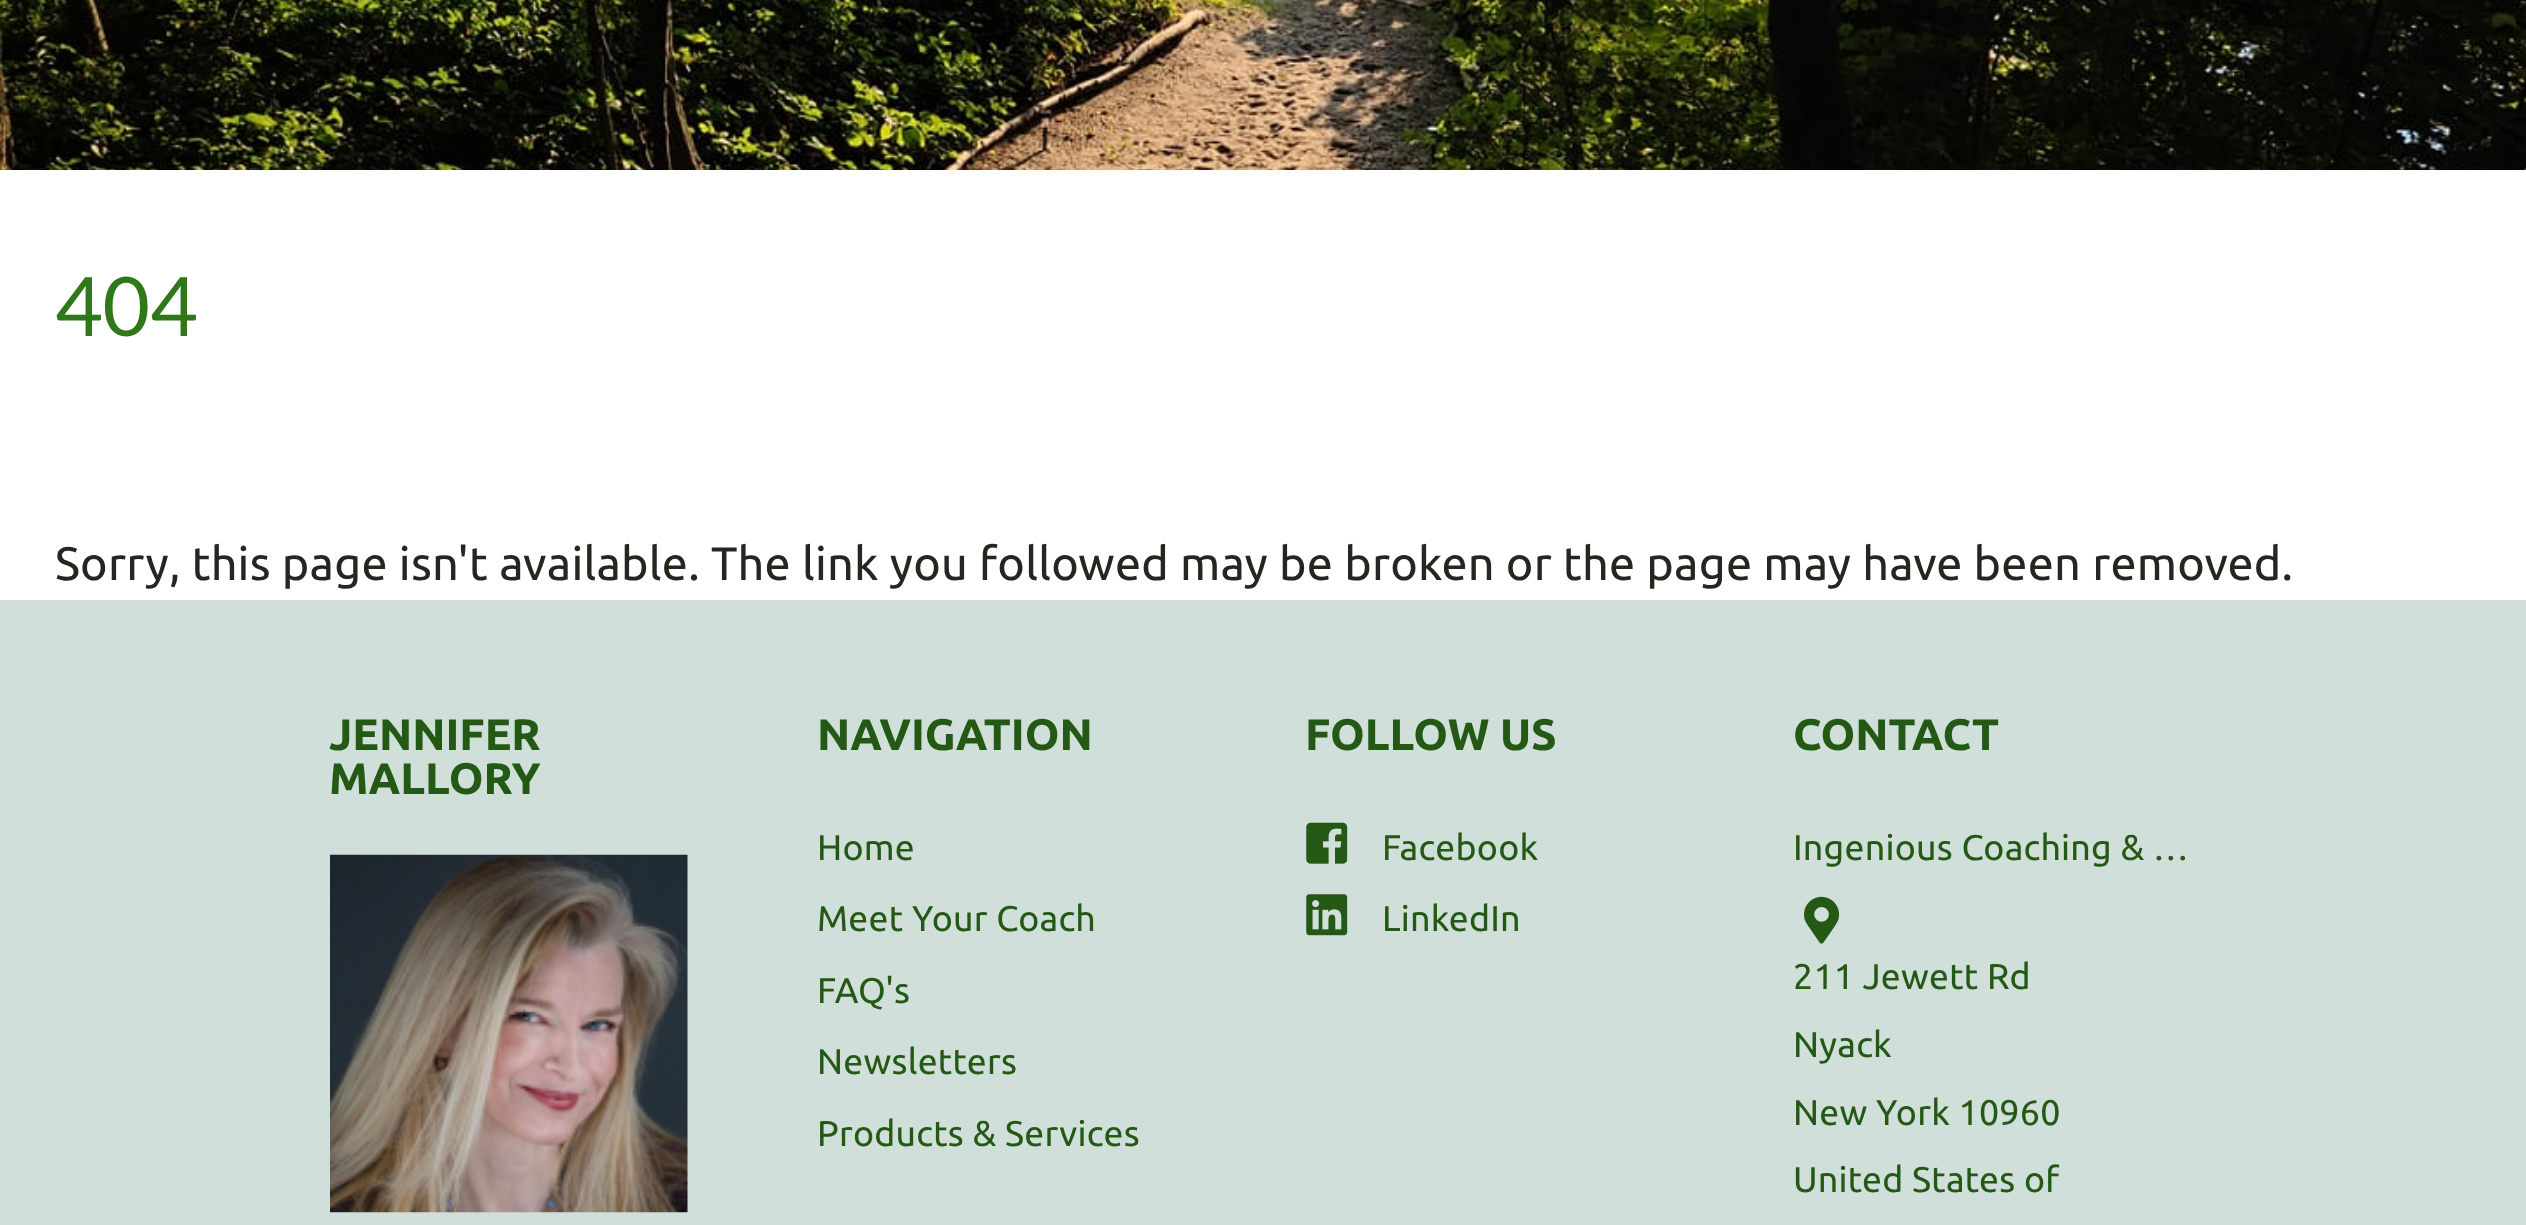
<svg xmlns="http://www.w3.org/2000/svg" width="2526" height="1225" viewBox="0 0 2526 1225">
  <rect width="100%" height="100%" fill="rgb(255,255,255)"/>
  <image x="0" y="0" width="2526" height="170" href="pic1.png"/>
  <text x="55" y="336" font-family="Lato" font-size="82" fill="rgb(46,120,26)">404</text>
  <text x="55" y="580" font-family="Ubuntu" font-size="46.75" letter-spacing="0.23" fill="rgb(38,38,33)">Sorry, this page isn't available. The link you followed may be broken or the page may have been removed.</text>
  <rect x="0" y="603" width="2526" height="622" fill="rgb(209,223,218)"/>
  <rect x="0" y="600" width="2526" height="3" fill="rgb(216,216,216)"/>
  <g font-family="Ubuntu" font-size="44" font-weight="bold" fill="rgb(35,89,20)">
    <text>
      <tspan x="329" y="750">JENNIFER</tspan>
      <tspan x="329" y="794">MALLORY</tspan>
    </text>
  </g>
  <image x="330" y="854" width="358" height="359" href="pic2.png"/>
  <text x="817" y="750" font-family="Ubuntu" font-size="44" font-weight="bold" fill="rgb(35,89,20)">NAVIGATION</text>
  <g font-family="Ubuntu" font-size="35.75" letter-spacing="0.23" fill="rgb(35,89,20)">
    <text>
      <tspan x="817" y="860">Home</tspan>
      <tspan x="817" y="931">Meet Your Coach</tspan>
    </text>
    <text>
      <tspan x="817" y="1003">FAQ's</tspan>
      <tspan x="817" y="1074">Newsletters</tspan>
    </text>
    <text x="817" y="1146">Products &amp; Services</text>
  </g>
  <text x="1305" y="750" font-family="Ubuntu" font-size="44" font-weight="bold" fill="rgb(35,89,20)">FOLLOW US</text>
  <image x="1306" y="822" width="42" height="42" href="pic3.png"/>
  <text x="1382" y="860" font-family="Ubuntu" font-size="35.75" letter-spacing="0.23" fill="rgb(35,89,20)">Facebook</text>
  <image x="1306" y="894" width="42" height="42" href="pic4.png"/>
  <text x="1382" y="931" font-family="Ubuntu" font-size="35.75" letter-spacing="0.23" fill="rgb(35,89,20)">LinkedIn</text>
  <text x="1793" y="750" font-family="Ubuntu" font-size="44" font-weight="bold" fill="rgb(35,89,20)">CONTACT</text>
  <text x="1793" y="860" font-family="Ubuntu" font-size="35.75" letter-spacing="0.23" fill="rgb(35,89,20)">Ingenious Coaching &amp; …</text>
  <image x="1804" y="896" width="36" height="48" href="pic5.png"/>
  <g font-family="Ubuntu" font-size="35.75" letter-spacing="0.23" fill="rgb(35,89,20)">
    <text>
      <tspan x="1793" y="989">211 Jewett Rd</tspan>
      <tspan x="1793" y="1057">Nyack</tspan>
      <tspan x="1793" y="1125">New York 10960</tspan>
      <tspan x="1793" y="1192">United States of</tspan>
    </text>
  </g>
</svg>
